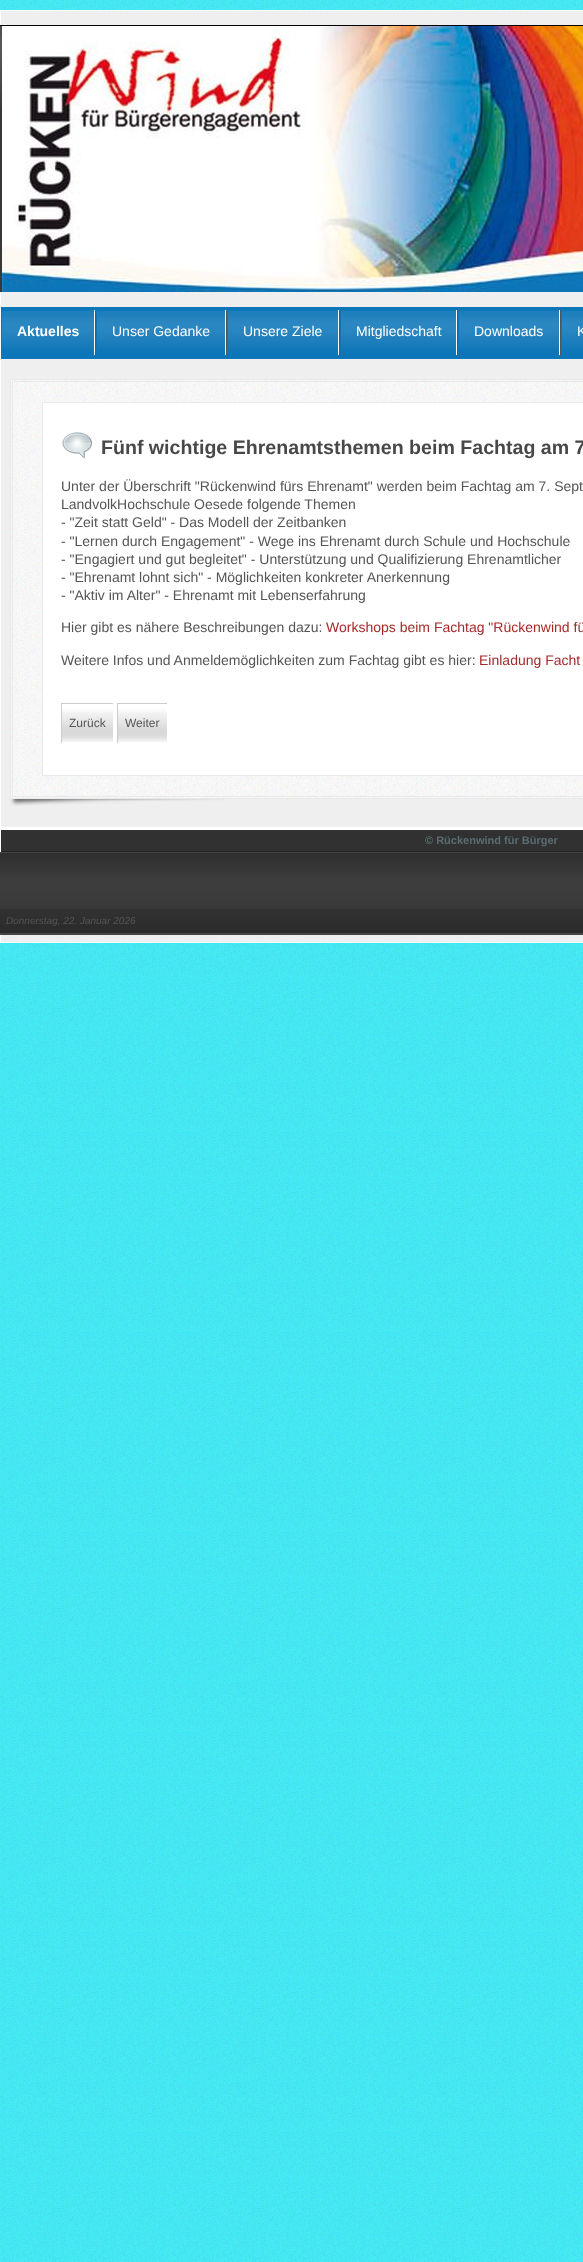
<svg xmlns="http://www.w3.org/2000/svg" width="583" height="2262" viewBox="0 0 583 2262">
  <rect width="100%" height="100%" fill="rgb(54,232,245)"/>
  <image x="0" y="0" width="583" height="2262" href="pic1.png"/>
  <rect x="0.5" y="10.5" width="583" height="817" fill="rgb(239,239,239)" stroke="rgb(255,255,255)"/>
  <rect x="0" y="26" width="2" height="266" fill="rgb(56,56,56)"/>
  <image x="0" y="26" width="2" height="80" href="pic2.png"/>
  <path d="M-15 25H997C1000 25 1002 27 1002 30V292H-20V30C-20 27-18 25-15 25ZM-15 26H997C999 26 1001 28 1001 30V292H-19V28L-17 27Z" fill="rgb(0,0,0)" fill-rule="evenodd"/>
  <image x="2" y="26" width="581" height="266" href="pic3.png"/>
  <rect x="1" y="307" width="582" height="52" fill="rgb(13,118,184)"/>
  <rect x="95" y="310" width="1" height="46" fill="rgb(85,85,85)"/>
  <image x="2" y="311" width="92" height="39" href="pic4.png"/>
  <rect x="94" y="310" width="1" height="46" fill="rgb(255,255,255)"/>
  <rect x="94" y="355" width="1" height="1" fill="rgb(13,118,184)"/>
  <text x="17" y="336" font-family="Liberation Sans" font-size="14" font-weight="bold" fill="rgb(255,255,255)">Aktuelles</text>
  <rect x="226" y="310" width="1" height="46" fill="rgb(85,85,85)"/>
  <image x="97" y="311" width="128" height="39" href="pic5.png"/>
  <rect x="225" y="310" width="1" height="46" fill="rgb(255,255,255)"/>
  <rect x="225" y="355" width="1" height="1" fill="rgb(13,118,184)"/>
  <text x="112" y="336" font-family="Liberation Sans" font-size="14" fill="rgb(255,255,255)">Unser Gedanke</text>
  <rect x="339" y="310" width="1" height="46" fill="rgb(85,85,85)"/>
  <image x="228" y="311" width="110" height="39" href="pic6.png"/>
  <rect x="338" y="310" width="1" height="46" fill="rgb(255,255,255)"/>
  <rect x="338" y="355" width="1" height="1" fill="rgb(13,118,184)"/>
  <text x="243" y="336" font-family="Liberation Sans" font-size="14" fill="rgb(255,255,255)">Unsere Ziele</text>
  <rect x="457" y="310" width="1" height="46" fill="rgb(85,85,85)"/>
  <image x="341" y="311" width="115" height="39" href="pic7.png"/>
  <rect x="456" y="310" width="1" height="46" fill="rgb(255,255,255)"/>
  <rect x="456" y="355" width="1" height="1" fill="rgb(13,118,184)"/>
  <text x="356" y="336" font-family="Liberation Sans" font-size="14" fill="rgb(255,255,255)">Mitgliedschaft</text>
  <rect x="560" y="310" width="1" height="46" fill="rgb(85,85,85)"/>
  <image x="459" y="311" width="100" height="39" href="pic8.png"/>
  <rect x="559" y="310" width="1" height="46" fill="rgb(255,255,255)"/>
  <rect x="559" y="355" width="1" height="1" fill="rgb(13,118,184)"/>
  <text x="474" y="336" font-family="Liberation Sans" font-size="14" fill="rgb(255,255,255)">Downloads</text>
  <image x="562" y="311" width="21" height="39" href="pic9.png"/>
  <text x="577" y="336" font-family="Liberation Sans" font-size="14" fill="rgb(255,255,255)">K</text>
  <rect x="11" y="380" width="572" height="418" fill="rgb(249,249,249)"/>
  <image x="11" y="380" width="572" height="418" href="pic10.png"/>
  <rect x="10.5" y="379.5" width="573" height="419" fill="none" stroke="rgb(233,233,233)"/>
  <rect x="12.5" y="381.5" width="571" height="415" fill="none" stroke="rgb(233,233,233)"/>
  <rect x="42.5" y="402.5" width="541" height="373" fill="rgb(255,255,255)" stroke="rgb(233,233,233)"/>
  <image x="62" y="432" width="31" height="27" href="pic11.png"/>
  <text x="101" y="454" font-family="Liberation Sans" font-size="19.6" font-weight="bold" fill="rgb(72,72,72)">Fünf wichtige Ehrenamtsthemen beim Fachtag am 7</text>
  <g font-family="Liberation Sans" font-size="14" fill="rgb(85,85,85)">
    <text>
      <tspan x="61" y="491">Unter der Überschrift "Rückenwind fürs Ehrenamt" werden beim Fachtag am 7. Sept</tspan>
      <tspan x="61" y="509">LandvolkHochschule Oesede folgende Themen</tspan>
      <tspan x="61" y="527">- "Zeit statt Geld" - Das Modell der Zeitbanken</tspan>
      <tspan x="61" y="546">- "Lernen durch Engagement" - Wege ins Ehrenamt durch Schule und Hochschule</tspan>
      <tspan x="61" y="564">- "Engagiert und gut begleitet" - Unterstützung und Qualifizierung Ehrenamtlicher</tspan>
      <tspan x="61" y="582">- "Ehrenamt lohnt sich" - Möglichkeiten konkreter Anerkennung</tspan>
      <tspan x="61" y="600">- "Aktiv im Alter" - Ehrenamt mit Lebenserfahrung</tspan>
    </text>
    <text x="61" y="632">Hier gibt es nähere Beschreibungen dazu:</text>
  </g>
  <text x="326" y="632" font-family="Liberation Sans" font-size="14" fill="rgb(165,42,42)">Workshops beim Fachtag "Rückenwind fü</text>
  <text x="61" y="665" font-family="Liberation Sans" font-size="14" fill="rgb(85,85,85)">Weitere Infos und Anmeldemöglichkeiten zum Fachtag gibt es hier:</text>
  <text x="479" y="665" font-family="Liberation Sans" font-size="14" fill="rgb(165,42,42)">Einladung Facht</text>
  <image x="62" y="704" width="51" height="38" href="pic12.png"/>
  <rect x="61" y="703" width="53" height="1" fill="rgb(204,204,204)"/>
  <rect x="113" y="703" width="1" height="1" fill="rgb(255,255,255)"/>
  <rect x="61" y="703" width="1" height="40" fill="rgb(204,204,204)"/>
  <text x="69" y="727" font-family="Liberation Sans" font-size="12" fill="rgb(85,85,85)">Zurück</text>
  <image x="118" y="704" width="49" height="38" href="pic13.png"/>
  <rect x="117" y="703" width="51" height="1" fill="rgb(204,204,204)"/>
  <rect x="167" y="703" width="1" height="1" fill="rgb(255,255,255)"/>
  <rect x="117" y="703" width="1" height="40" fill="rgb(204,204,204)"/>
  <text x="125" y="727" font-family="Liberation Sans" font-size="12" fill="rgb(85,85,85)">Weiter</text>
  <image x="10" y="799" width="214" height="7" href="pic14.png"/>
  <rect x="1" y="935" width="582" height="7" fill="rgb(239,239,239)"/>
  <rect x="0.5" y="828.5" width="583" height="114" fill="none" stroke="rgb(255,255,255)"/>
  <rect x="1" y="830" width="582" height="21" fill="rgb(49,49,49)"/>
  <rect x="1" y="829" width="582" height="1" fill="rgb(255,255,255)"/>
  <rect x="1" y="851" width="582" height="1" fill="rgb(34,34,34)"/>
  <text x="425" y="844" font-family="Liberation Sans" font-size="11" font-weight="bold" fill="rgb(91,108,113)">© Rückenwind für Bürger</text>
  <rect x="0" y="853" width="583" height="80" fill="rgb(34,34,34)"/>
  <image x="0" y="853" width="583" height="80" href="pic15.png"/>
  <rect x="0" y="852" width="583" height="1" fill="rgb(68,68,68)"/>
  <rect x="0" y="933" width="583" height="2" fill="rgb(68,68,68)"/>
  <text x="6" y="924" font-family="Liberation Sans" font-size="10" font-style="italic" fill="rgb(85,85,85)">Donnerstag, 22. Januar 2026</text>
</svg>
